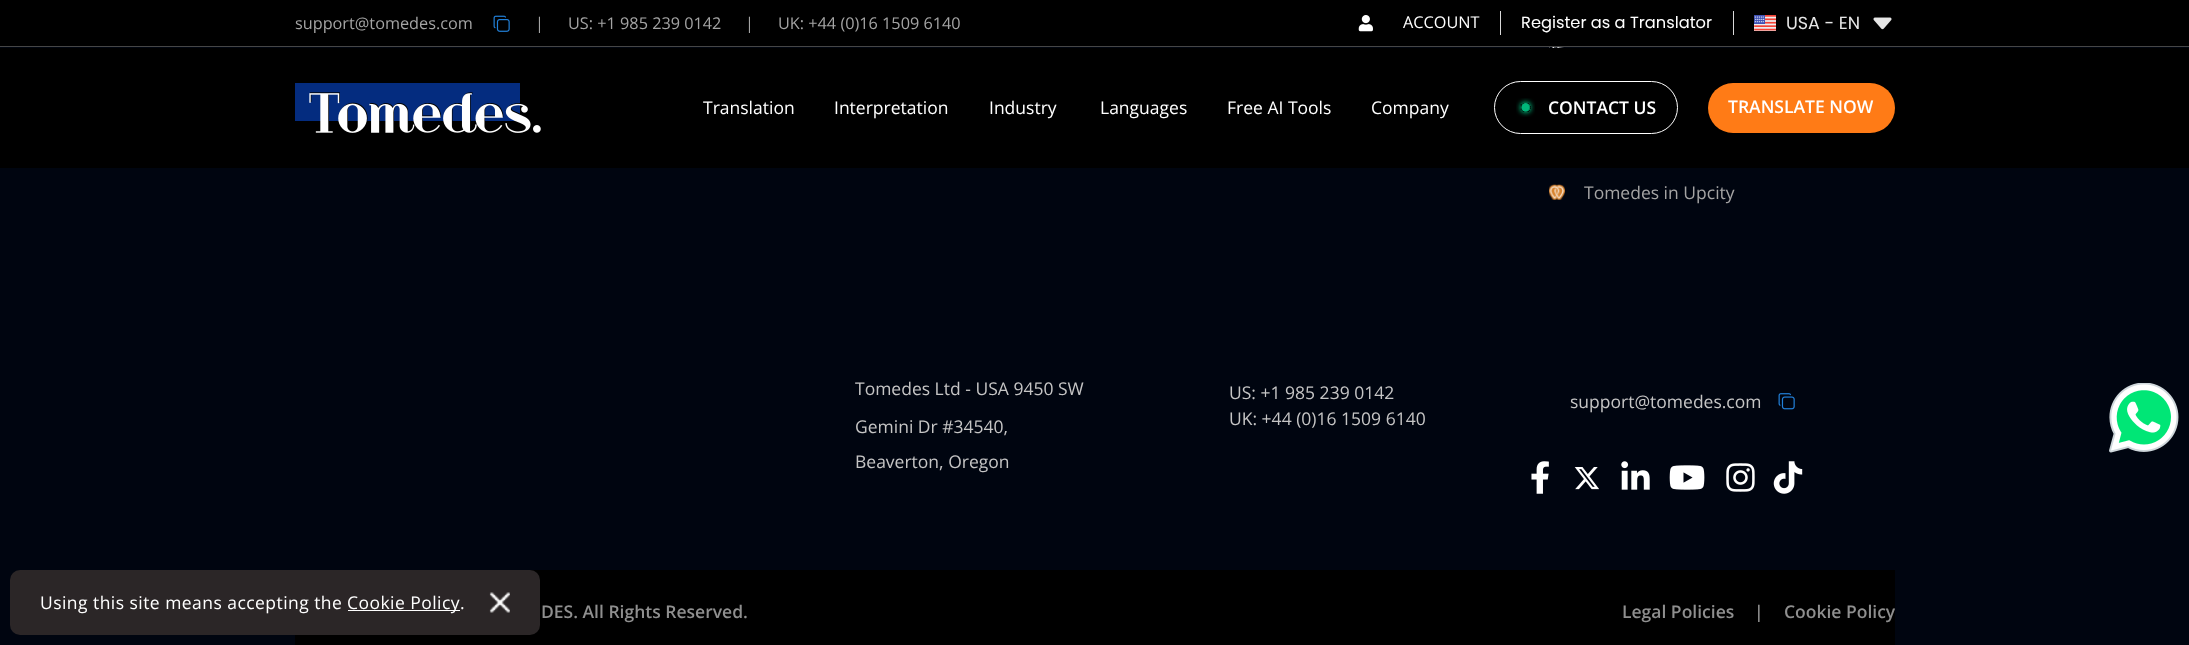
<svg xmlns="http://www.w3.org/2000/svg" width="2189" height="645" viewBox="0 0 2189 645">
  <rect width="100%" height="100%" fill="rgb(0,5,16)"/>
  <rect x="0" y="0" width="2189" height="46" fill="rgb(0,0,0)"/>
  <rect x="0" y="46" width="2189" height="1" fill="rgb(70,70,70)"/>
  <text x="295" y="29" font-family="Open Sans" font-size="16.25" fill="rgb(164,164,164)">support@tomedes.com</text>
  <image x="493" y="15" width="17" height="17" href="pic1.png"/>
  <g font-family="Open Sans" font-size="16.25" fill="rgb(164,164,164)">
    <text x="535" y="29">|</text>
    <text x="568" y="29">US: +1 985 239 0142</text>
    <text x="745" y="29">|</text>
    <text x="778" y="29">UK: +44 (0)16 1509 6140</text>
  </g>
  <image x="1358" y="15" width="15" height="17" href="pic2.png"/>
  <text x="1403" y="28" font-family="Open Sans" font-size="16.25" fill="rgb(255,255,255)">ACCOUNT</text>
  <rect x="1733" y="11" width="1" height="24" fill="rgb(217,217,217)"/>
  <rect x="1500" y="11" width="1" height="24" fill="rgb(217,217,217)"/>
  <text x="1521" y="28" font-family="Poppins" font-size="16.25" fill="rgb(255,255,255)">Register as a Translator</text>
  <image x="1754" y="15" width="22" height="16" href="pic3.png"/>
  <text x="1786" y="29" font-family="Poppins" font-size="17.5" fill="rgb(230,230,230)">USA - EN</text>
  <image x="1873" y="17" width="19" height="13" href="pic4.png"/>
  <rect x="0" y="48" width="2189" height="120" fill="rgb(0,0,0)"/>
  <image x="295" y="83" width="246" height="50" href="pic5.png"/>
  <g font-family="Open Sans" font-size="17.5" fill="rgb(255,255,255)">
    <text x="703" y="114">Translation</text>
    <text x="834" y="114">Interpretation</text>
    <text x="989" y="114">Industry</text>
    <text x="1100" y="114">Languages</text>
    <text x="1227" y="114">Free AI Tools</text>
    <text x="1371" y="114">Company</text>
  </g>
  <rect x="1494.5" y="81.5" width="183" height="52" rx="26" fill="none" stroke="rgb(255,255,255)"/>
  <image x="1516" y="98" width="19" height="19" href="pic6.png"/>
  <text x="1548" y="114" font-family="Open Sans" font-size="17.5" font-weight="600" fill="rgb(255,255,255)">CONTACT US</text>
  <rect x="1708" y="83" width="187" height="50" rx="25" fill="rgb(255,123,22)"/>
  <text x="1728" y="113" font-family="Open Sans" font-size="17.5" font-weight="600" fill="rgb(255,255,255)">TRANSLATE NOW</text>
  <image x="1549" y="47" width="15" height="1" href="pic7.png"/>
  <image x="1549" y="184" width="16" height="16" href="pic8.png"/>
  <text x="1584" y="199" font-family="Open Sans" font-size="17.5" fill="rgb(164,164,164)">Tomedes in Upcity</text>
  <g font-family="Open Sans" font-size="17.5" fill="rgb(197,197,197)">
    <text x="855" y="395">Tomedes Ltd - USA 9450 SW</text>
    <text x="855" y="433">Gemini Dr #34540,</text>
    <text x="855" y="468">Beaverton, Oregon</text>
    <text>
      <tspan x="1229" y="399">US: +1 985 239 0142</tspan>
      <tspan x="1229" y="425">UK: +44 (0)16 1509 6140</tspan>
    </text>
    <text x="1570" y="408">support@tomedes.com</text>
  </g>
  <image x="1778" y="393" width="17" height="17" href="pic9.png"/>
  <image x="1531" y="461" width="18" height="33" href="pic10.png"/>
  <image x="1574" y="467" width="25" height="23" href="pic11.png"/>
  <image x="1621" y="461" width="29" height="29" href="pic12.png"/>
  <image x="1669" y="465" width="36" height="25" href="pic13.png"/>
  <image x="1726" y="463" width="29" height="29" href="pic14.png"/>
  <image x="1773" y="461" width="30" height="33" href="pic15.png"/>
  <image x="2109" y="383" width="70" height="70" href="pic16.png"/>
  <rect x="295" y="570" width="1600" height="75" fill="rgb(0,0,0)"/>
  <rect x="10" y="570" width="530" height="65" rx="10" fill="rgb(43,38,39)"/>
  <text x="40" y="609" font-family="Open Sans" font-size="17.5" letter-spacing="0.45" fill="rgb(255,255,255)">Using this site means accepting the</text>
  <rect x="348" y="610" width="112" height="1" fill="rgb(255,255,255)"/>
  <text x="347" y="609" font-family="Open Sans" font-size="17.5" letter-spacing="0.45" fill="rgb(255,255,255)">Cookie Policy.</text>
  <image x="489" y="592" width="21" height="21" href="pic17.png"/>
  <g font-family="Open Sans" font-size="17.5" font-weight="600" fill="rgb(143,143,143)">
    <text x="541" y="618">DES. All Rights Reserved.</text>
    <text x="1622" y="618">Legal Policies</text>
    <text x="1754" y="618">|</text>
    <text x="1784" y="618">Cookie Policy</text>
  </g>
</svg>
